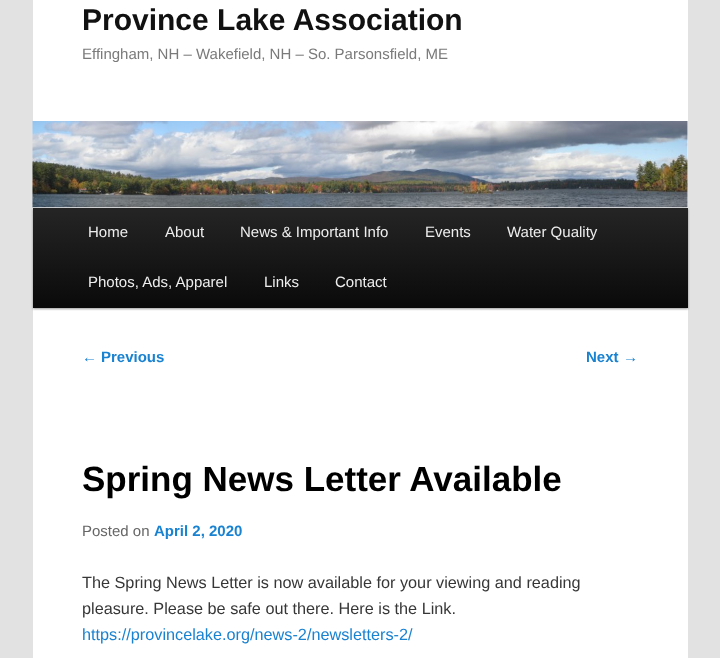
<svg xmlns="http://www.w3.org/2000/svg" width="720" height="658" viewBox="0 0 720 658">
  <defs>
    <linearGradient id="g1" gradientUnits="userSpaceOnUse" x1="360" y1="207" x2="360" y2="308"><stop offset="0" stop-color="rgb(37,37,37)"/><stop offset="1" stop-color="rgb(10,10,10)"/></linearGradient>
  </defs>
  <rect width="100%" height="100%" fill="rgb(226,226,226)"/>
  <rect x="33" y="0" width="655" height="658" fill="rgb(255,255,255)"/>
  <text x="82" y="30" font-family="Liberation Sans" font-size="30" font-weight="bold" fill="rgb(17,17,17)">Province Lake Association</text>
  <text x="82" y="59" font-family="Liberation Sans" font-size="15" fill="rgb(122,122,122)">Effingham, NH – Wakefield, NH – So. Parsonsfield, ME</text>
  <rect x="33" y="209" width="655" height="100" fill="rgba(0,0,0,0.4)" filter="blur(1px)"/>
  <image x="32" y="121" width="656" height="87" href="pic1.png"/>
  <rect x="33" y="208" width="655" height="100" fill="url(#g1)"/>
  <g font-family="Liberation Sans" font-size="15" fill="rgb(238,238,238)">
    <text x="88" y="237">Home</text>
    <text x="165" y="237">About</text>
    <text x="240" y="237">News &amp; Important Info</text>
    <text x="425" y="237">Events</text>
    <text x="507" y="237">Water Quality</text>
    <text x="88" y="287">Photos, Ads, Apparel</text>
    <text x="264" y="287">Links</text>
    <text x="335" y="287">Contact</text>
  </g>
  <text x="82" y="362" font-family="Liberation Sans" font-size="15" fill="rgb(25,130,209)">←</text>
  <g font-family="Liberation Sans" font-size="15" font-weight="bold" fill="rgb(25,130,209)">
    <text x="101" y="362">Previous</text>
    <text x="586" y="362">Next</text>
  </g>
  <text x="623" y="362" font-family="Liberation Sans" font-size="15" fill="rgb(25,130,209)">→</text>
  <text x="82" y="491" font-family="Liberation Sans" font-size="35" font-weight="bold" fill="rgb(0,0,0)">Spring News Letter Available</text>
  <text x="82" y="536" font-family="Liberation Sans" font-size="15" fill="rgb(102,102,102)">Posted on</text>
  <text x="154" y="536" font-family="Liberation Sans" font-size="15" font-weight="bold" fill="rgb(25,130,209)">April 2, 2020</text>
  <g font-family="Liberation Sans" font-size="16.25" fill="rgb(55,55,55)">
    <text>
      <tspan x="82" y="588">The Spring News Letter is now available for your viewing and reading</tspan>
      <tspan x="82" y="614">pleasure. Please be safe out there. Here is the Link.</tspan>
    </text>
  </g>
  <text x="82" y="640" font-family="Liberation Sans" font-size="16.25" fill="rgb(25,130,209)">https://provincelake.org/news-2/newsletters-2/</text>
</svg>
